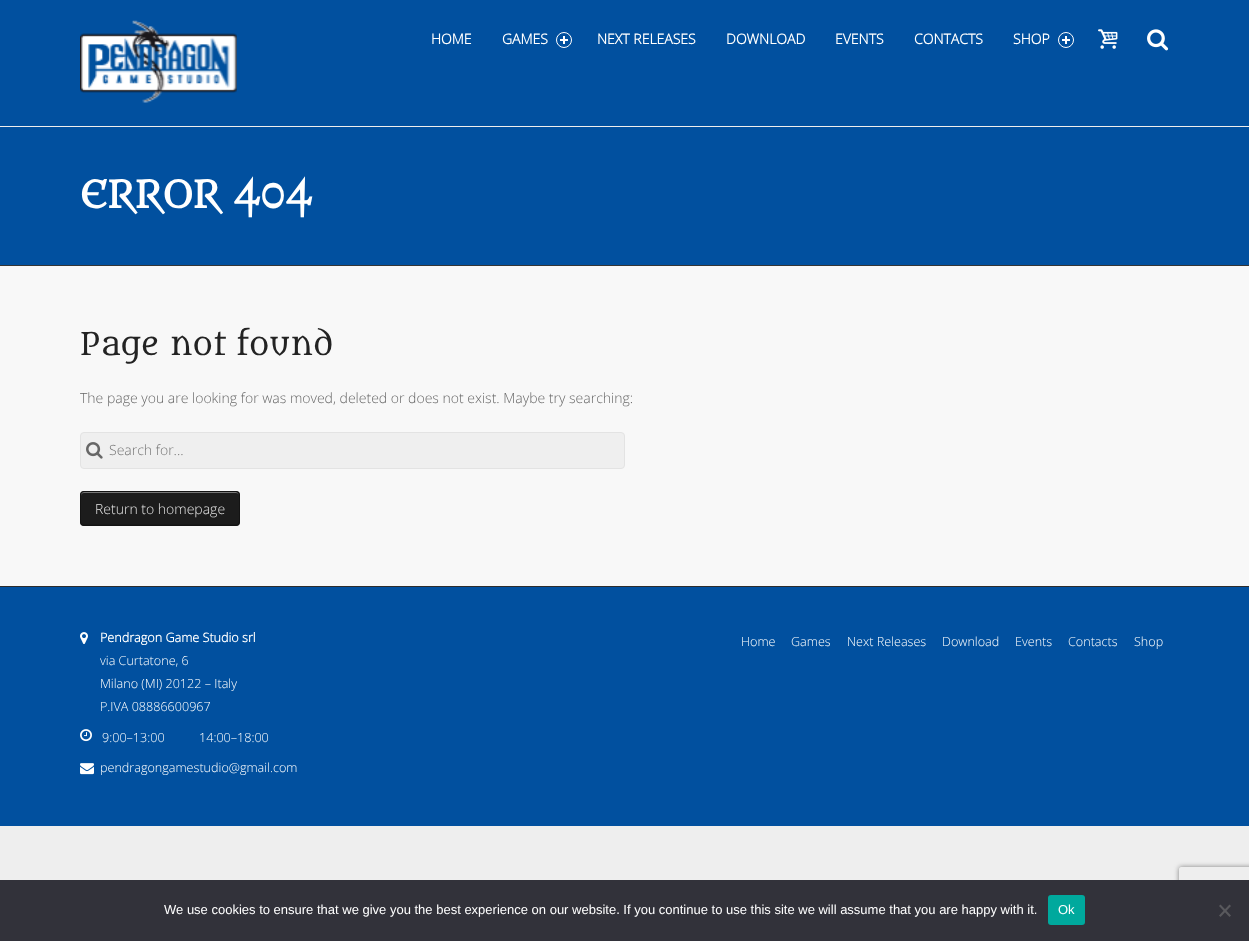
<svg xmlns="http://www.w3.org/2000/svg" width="1249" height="941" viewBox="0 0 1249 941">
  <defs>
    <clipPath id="clip1"><path d="M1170 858H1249V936H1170ZM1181 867H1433C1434 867 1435 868 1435 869V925C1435 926 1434 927 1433 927H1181C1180 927 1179 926 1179 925V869C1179 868 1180 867 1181 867Z" clip-rule="evenodd"/></clipPath>
  </defs>
  <rect width="100%" height="100%" fill="rgb(238,238,238)"/>
  <rect x="0" y="0" width="1249" height="126" fill="rgb(1,80,159)"/>
  <image x="80" y="20" width="157" height="83" href="pic1.png"/>
  <g font-family="Open Sans" font-size="14" font-weight="bold" fill="rgb(255,255,255)">
    <text x="431" y="44">HOME</text>
    <text x="502" y="44">GAMES</text>
  </g>
  <circle cx="564" cy="40" r="7.5" fill="none" stroke="rgb(255,255,255)"/>
  <rect x="560" y="39" width="8" height="2" fill="rgb(255,255,255)"/>
  <rect x="563" y="36" width="2" height="8" fill="rgb(255,255,255)"/>
  <g font-family="Open Sans" font-size="14" font-weight="bold" fill="rgb(255,255,255)">
    <text x="597" y="44">NEXT RELEASES</text>
    <text x="726" y="44">DOWNLOAD</text>
    <text x="835" y="44">EVENTS</text>
    <text x="914" y="44">CONTACTS</text>
    <text x="1013" y="44">SHOP</text>
  </g>
  <circle cx="1066" cy="40" r="7.5" fill="none" stroke="rgb(255,255,255)"/>
  <rect x="1062" y="39" width="8" height="2" fill="rgb(255,255,255)"/>
  <rect x="1065" y="36" width="2" height="8" fill="rgb(255,255,255)"/>
  <image x="1098" y="29" width="20" height="20" href="pic2.png"/>
  <image x="1147" y="29" width="22" height="22" href="pic3.png"/>
  <rect x="0" y="127" width="1249" height="138" fill="rgb(1,80,159)"/>
  <rect x="0" y="265" width="1249" height="1" fill="rgb(53,53,53)"/>
  <text x="80" y="208" font-family="Metamorphous" font-size="36.75" font-weight="bold" fill="rgb(255,255,255)">ERROR 404</text>
  <rect x="0" y="266" width="1249" height="320" fill="rgb(248,248,248)"/>
  <text x="80" y="355" font-family="Metamorphous" font-size="30.75" fill="rgb(35,35,35)">Page not found</text>
  <text x="80" y="403" font-family="Open Sans" font-size="14" font-weight="300" fill="rgb(103,103,103)">The page you are looking for was moved, deleted or does not exist. Maybe try searching:</text>
  <rect x="80.5" y="432.5" width="544" height="36" rx="3.5" fill="rgb(239,239,239)" stroke="rgb(227,227,227)"/>
  <image x="86" y="442" width="17" height="17" href="pic4.png"/>
  <text x="109" y="455" font-family="Open Sans" font-size="14" font-weight="300" fill="rgb(117,117,117)">Search for...</text>
  <rect x="80" y="491" width="160" height="35" rx="4" fill="rgb(28,28,28)"/>
  <path d="M81 521C81 523 82 525 84 525H237C239 525 239 523 239 521C239 523 238 524 236 524H84C82 524 81 523 81 521Z" fill="rgb(24,24,24)"/>
  <path d="M84 493H236C238 493 239 494 239 496C239 494 238 492 236 492H83C81 492 81 494 81 496C81 494 82 493 84 493Z" fill="rgb(119,119,119)"/>
  <rect x="80.5" y="491.5" width="159" height="34" rx="3.5" fill="none" stroke="rgb(19,19,19)"/>
  <text x="95" y="514" font-family="Open Sans" font-size="14" font-weight="300" fill="rgb(228,228,228)">Return to homepage</text>
  <rect x="0" y="587" width="1249" height="239" fill="rgb(1,80,159)"/>
  <rect x="0" y="586" width="1249" height="1" fill="rgb(44,44,44)"/>
  <image x="80" y="632" width="8" height="12" href="pic5.png"/>
  <text x="100" y="642" font-family="Open Sans" font-size="12.6" font-weight="bold" fill="rgb(255,255,255)">Pendragon Game Studio srl</text>
  <g font-family="Open Sans" font-size="12.6" font-weight="300" fill="rgb(255,255,255)">
    <text>
      <tspan x="100" y="665">via Curtatone, 6</tspan>
      <tspan x="100" y="688">Milano (MI) 20122 – Italy</tspan>
      <tspan x="100" y="711">P.IVA 08886600967</tspan>
    </text>
  </g>
  <image x="80" y="729" width="12" height="13" href="pic6.png"/>
  <g font-family="Open Sans" font-size="12.6" font-weight="300" fill="rgb(255,255,255)">
    <text x="102" y="742">9:00–13:00</text>
    <text x="199" y="742">14:00–18:00</text>
  </g>
  <image x="80" y="763" width="14" height="12" href="pic7.png"/>
  <g font-family="Open Sans" font-size="12.6" font-weight="300" fill="rgb(255,255,255)">
    <text x="100" y="772">pendragongamestudio@gmail.com</text>
    <text x="741" y="646">Home</text>
    <text x="791" y="646">Games</text>
    <text x="847" y="646">Next Releases</text>
    <text x="942" y="646">Download</text>
    <text x="1015" y="646">Events</text>
    <text x="1068" y="646">Contacts</text>
    <text x="1134" y="646">Shop</text>
  </g>
  <g clip-path="url(#clip1)">
    <rect x="1179" y="867" width="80" height="60" rx="2" fill="rgb(128,128,128)" filter="blur(2.5px)"/>
  </g>
  <rect x="0" y="880" width="1249" height="61" fill="rgb(50,50,58)"/>
  <text x="164" y="914" font-family="Liberation Sans" font-size="13" fill="rgb(255,255,255)">We use cookies to ensure that we give you the best experience on our website. If you continue to use this site we will assume that you are happy with it.</text>
  <rect x="1048" y="895" width="37" height="30" rx="3" fill="rgb(0,169,157)"/>
  <text x="1058" y="914" font-family="Liberation Sans" font-size="13" fill="rgb(255,255,255)">Ok</text>
  <path d="M1229.5 904.5L1231 906L1220.5 917L1219 915.5Z" fill="rgb(89,89,93)"/>
  <path d="M1219 906L1220.5 904.5L1231 915.5L1229.5 917Z" fill="rgb(89,89,93)"/>
</svg>
